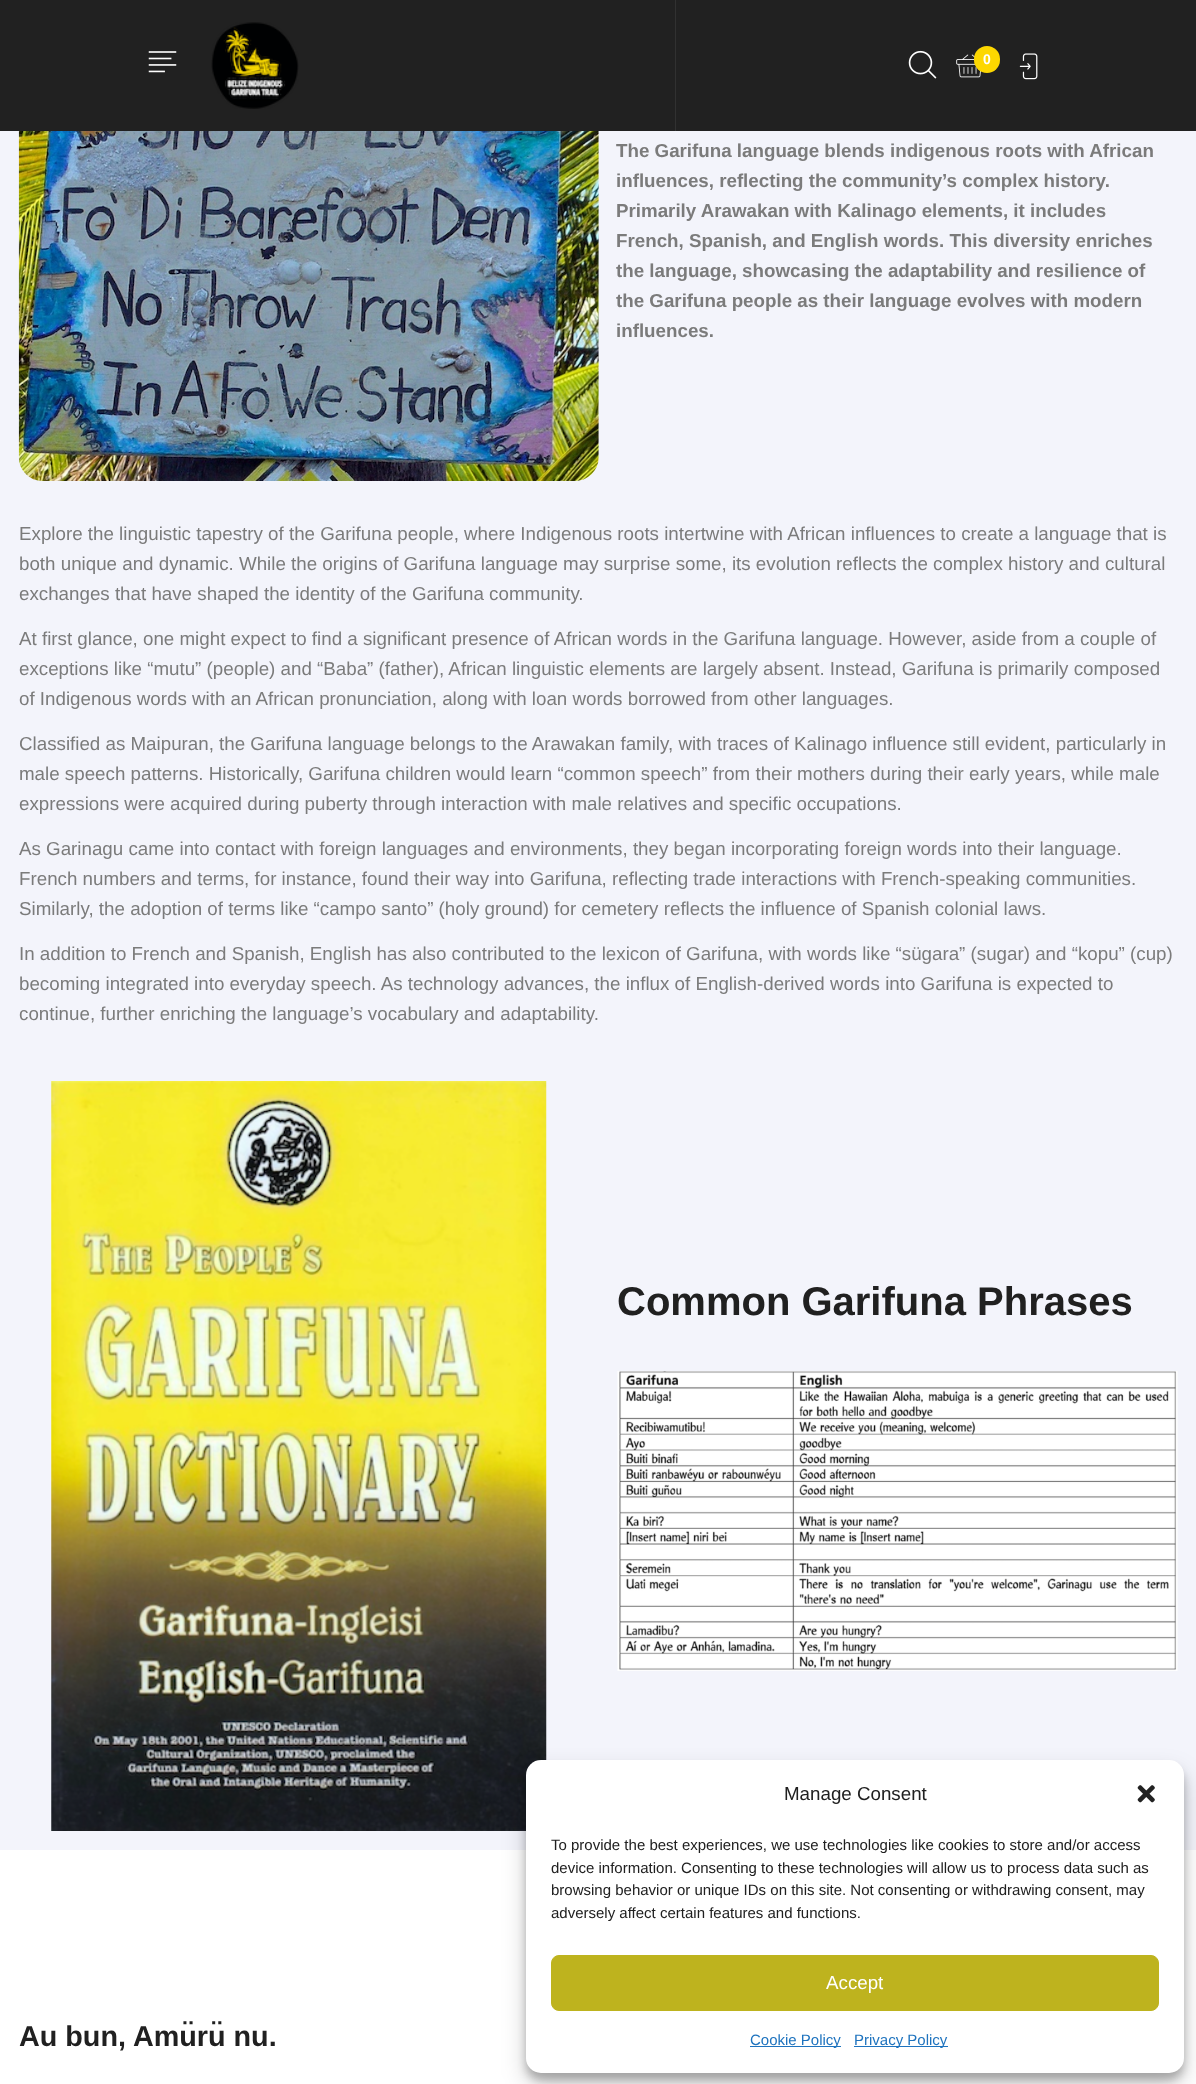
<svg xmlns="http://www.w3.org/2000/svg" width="1196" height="2084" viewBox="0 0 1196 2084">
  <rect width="100%" height="100%" fill="rgb(243,244,251)"/>
  <rect x="0" y="0" width="1196" height="131" fill="rgb(33,33,33)"/>
  <rect x="675" y="0" width="1" height="131" fill="rgb(49,49,49)"/>
  <image x="148" y="51" width="29" height="22" href="pic1.png"/>
  <image x="211" y="22" width="88" height="87" href="pic2.png"/>
  <image x="908" y="50" width="29" height="29" href="pic3.png"/>
  <image x="956" y="54" width="25" height="24" href="pic4.png"/>
  <rect x="974" y="46" width="26" height="27" rx="13" fill="rgb(253,215,0)"/>
  <text x="983" y="64" font-family="Liberation Sans" font-size="14" font-weight="bold" fill="rgb(255,255,255)">0</text>
  <image x="1019" y="53" width="19" height="27" href="pic5.png"/>
  <image x="18" y="131" width="581" height="350" href="pic6.png"/>
  <g font-family="Liberation Sans" font-size="18.75" font-weight="bold" fill="rgb(123,123,123)">
    <text>
      <tspan x="616" y="157">The Garifuna language blends indigenous roots with African</tspan>
      <tspan x="616" y="187">influences, reflecting the community’s complex history.</tspan>
      <tspan x="616" y="217">Primarily Arawakan with Kalinago elements, it includes</tspan>
      <tspan x="616" y="247">French, Spanish, and English words. This diversity enriches</tspan>
      <tspan x="616" y="277">the language, showcasing the adaptability and resilience of</tspan>
      <tspan x="616" y="307">the Garifuna people as their language evolves with modern</tspan>
      <tspan x="616" y="337">influences.</tspan>
    </text>
  </g>
  <g font-family="Liberation Sans" font-size="18.75" fill="rgb(123,123,123)">
    <text>
      <tspan x="19" y="540">Explore the linguistic tapestry of the Garifuna people, where Indigenous roots intertwine with African influences to create a language that is</tspan>
      <tspan x="19" y="570">both unique and dynamic. While the origins of Garifuna language may surprise some, its evolution reflects the complex history and cultural</tspan>
      <tspan x="19" y="600">exchanges that have shaped the identity of the Garifuna community.</tspan>
    </text>
    <text>
      <tspan x="19" y="645">At first glance, one might expect to find a significant presence of African words in the Garifuna language. However, aside from a couple of</tspan>
      <tspan x="19" y="675">exceptions like “mutu” (people) and “Baba” (father), African linguistic elements are largely absent. Instead, Garifuna is primarily composed</tspan>
      <tspan x="19" y="705">of Indigenous words with an African pronunciation, along with loan words borrowed from other languages.</tspan>
    </text>
    <text>
      <tspan x="19" y="750">Classified as Maipuran, the Garifuna language belongs to the Arawakan family, with traces of Kalinago influence still evident, particularly in</tspan>
      <tspan x="19" y="780">male speech patterns. Historically, Garifuna children would learn “common speech” from their mothers during their early years, while male</tspan>
      <tspan x="19" y="810">expressions were acquired during puberty through interaction with male relatives and specific occupations.</tspan>
    </text>
    <text>
      <tspan x="19" y="855">As Garinagu came into contact with foreign languages and environments, they began incorporating foreign words into their language.</tspan>
      <tspan x="19" y="885">French numbers and terms, for instance, found their way into Garifuna, reflecting trade interactions with French-speaking communities.</tspan>
      <tspan x="19" y="915">Similarly, the adoption of terms like “campo santo” (holy ground) for cemetery reflects the influence of Spanish colonial laws.</tspan>
    </text>
    <text>
      <tspan x="19" y="960">In addition to French and Spanish, English has also contributed to the lexicon of Garifuna, with words like “sügara” (sugar) and “kopu” (cup)</tspan>
      <tspan x="19" y="990">becoming integrated into everyday speech. As technology advances, the influx of English-derived words into Garifuna is expected to</tspan>
      <tspan x="19" y="1020">continue, further enriching the language’s vocabulary and adaptability.</tspan>
    </text>
  </g>
  <image x="51" y="1081" width="496" height="750" href="pic7.png"/>
  <text x="617" y="1315" font-family="Liberation Sans" font-size="40" font-weight="bold" fill="rgb(32,32,32)">Common Garifuna Phrases</text>
  <image x="617" y="1371" width="561" height="300" href="pic8.png"/>
  <rect x="0" y="1850" width="1196" height="234" fill="rgb(255,255,255)"/>
  <text x="19" y="2046" font-family="Liberation Sans" font-size="28.75" font-weight="bold" fill="rgb(32,32,32)">Au bun, Amürü nu.</text>
  <rect x="526" y="1768" width="658" height="312" rx="15" fill="rgba(0,0,0,0.23)" filter="blur(4px)"/>
  <rect x="526" y="1773" width="658" height="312" rx="15" fill="rgba(0,0,0,0.19)" filter="blur(12.5px)"/>
  <rect x="526" y="1760" width="658" height="313" rx="15" fill="rgb(255,255,255)"/>
  <text x="784" y="1800" font-family="Liberation Sans" font-size="18.75" fill="rgb(32,32,32)">Manage Consent</text>
  <image x="1137" y="1785" width="18" height="18" href="pic9.png"/>
  <g font-family="Liberation Sans" font-size="15" fill="rgb(32,32,32)">
    <text>
      <tspan x="551" y="1850">To provide the best experiences, we use technologies like cookies to store and/or access</tspan>
      <tspan x="551" y="1873">device information. Consenting to these technologies will allow us to process data such as</tspan>
      <tspan x="551" y="1895">browsing behavior or unique IDs on this site. Not consenting or withdrawing consent, may</tspan>
      <tspan x="551" y="1918">adversely affect certain features and functions.</tspan>
    </text>
  </g>
  <rect x="551.5" y="1955.5" width="607" height="55" rx="7.5" fill="rgb(190,179,30)" stroke="rgb(190,179,30)"/>
  <text x="826" y="1989" font-family="Liberation Sans" font-size="18.75" fill="rgb(255,255,255)">Accept</text>
  <rect x="750" y="2046" width="91" height="1" fill="rgb(30,115,190)"/>
  <text x="750" y="2045" font-family="Liberation Sans" font-size="15" fill="rgb(30,115,190)">Cookie Policy</text>
  <rect x="854" y="2046" width="94" height="1" fill="rgb(30,115,190)"/>
  <text x="854" y="2045" font-family="Liberation Sans" font-size="15" fill="rgb(30,115,190)">Privacy Policy</text>
</svg>
